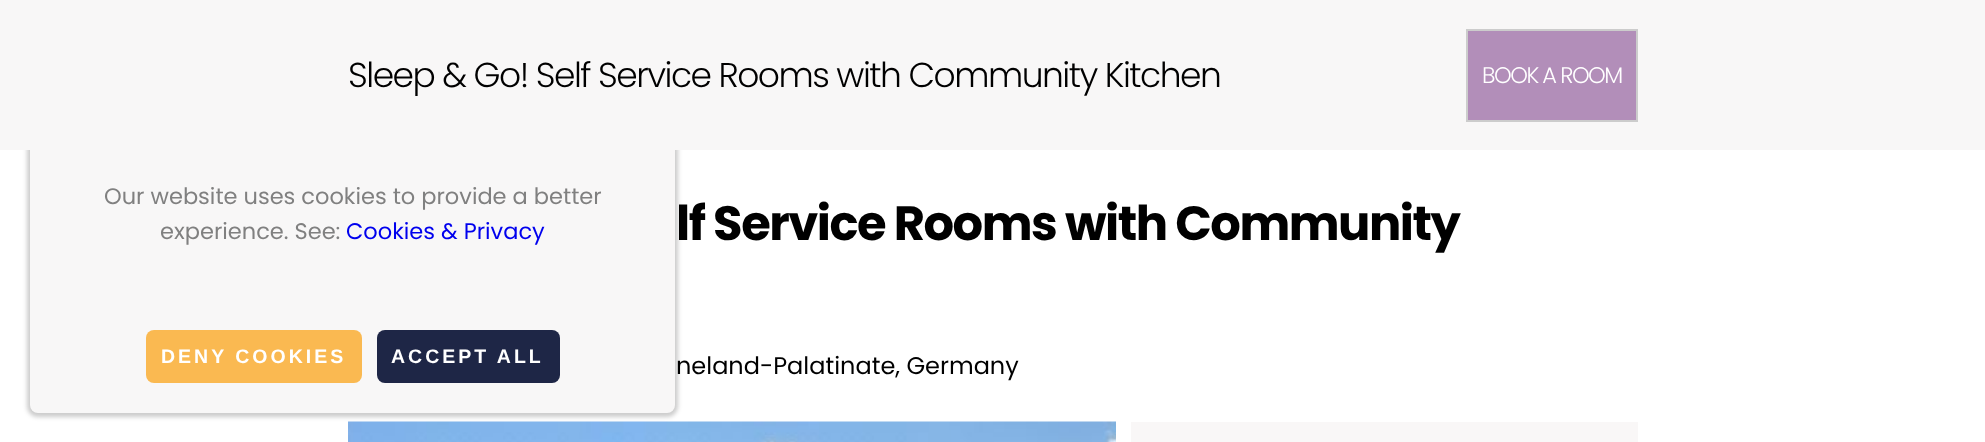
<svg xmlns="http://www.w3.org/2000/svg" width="1985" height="442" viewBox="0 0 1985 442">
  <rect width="100%" height="100%" fill="rgb(255,255,255)"/>
  <image x="348" y="421" width="768" height="21" href="pic1.png"/>
  <rect x="27" y="132" width="651" height="285" rx="11" fill="rgba(0,0,0,0.2)" filter="blur(2px)"/>
  <rect x="30" y="134" width="645" height="279" rx="8" fill="rgb(248,247,247)"/>
  <rect x="0" y="0" width="1985" height="150" fill="rgb(248,247,247)"/>
  <text x="348" y="87" font-family="Poppins" font-size="34.5" font-weight="300" letter-spacing="-1.5" fill="rgb(0,0,0)">Sleep &amp; Go! Self Service Rooms with Community Kitchen</text>
  <rect x="1467" y="30" width="170" height="91" fill="rgb(178,142,185)" stroke="rgb(204,204,204)" stroke-width="2"/>
  <text x="1482" y="83" font-family="Poppins" font-size="22.5" font-weight="300" letter-spacing="-1.5" fill="rgb(255,255,255)">BOOK A ROOM</text>
  <g font-family="Poppins" font-size="22.5" fill="rgb(128,128,128)">
    <text x="104" y="204">Our website uses cookies to provide a better</text>
    <text x="160" y="239">experience. See:</text>
  </g>
  <text x="346" y="239" font-family="Poppins" font-size="22.5" fill="rgb(0,0,238)">Cookies &amp; Privacy</text>
  <rect x="146" y="330" width="216" height="53" rx="8" fill="rgb(250,185,81)"/>
  <text x="161" y="363" font-family="Liberation Sans" font-size="19.5" font-weight="bold" letter-spacing="3" fill="rgb(255,255,255)">DENY COOKIES</text>
  <rect x="377" y="330" width="183" height="53" rx="8" fill="rgb(30,38,70)"/>
  <text x="391" y="363" font-family="Liberation Sans" font-size="19.5" font-weight="bold" letter-spacing="3" fill="rgb(255,255,255)">ACCEPT ALL</text>
  <text x="676" y="240" font-family="Poppins" font-size="48" font-weight="bold" letter-spacing="-1.5" fill="rgb(0,0,0)">lf Service Rooms with Community</text>
  <text x="676" y="374" font-family="Poppins" font-size="24" fill="rgb(0,0,0)">neland-Palatinate, Germany</text>
  <rect x="1131" y="422" width="507" height="20" fill="rgb(249,247,247)"/>
</svg>
